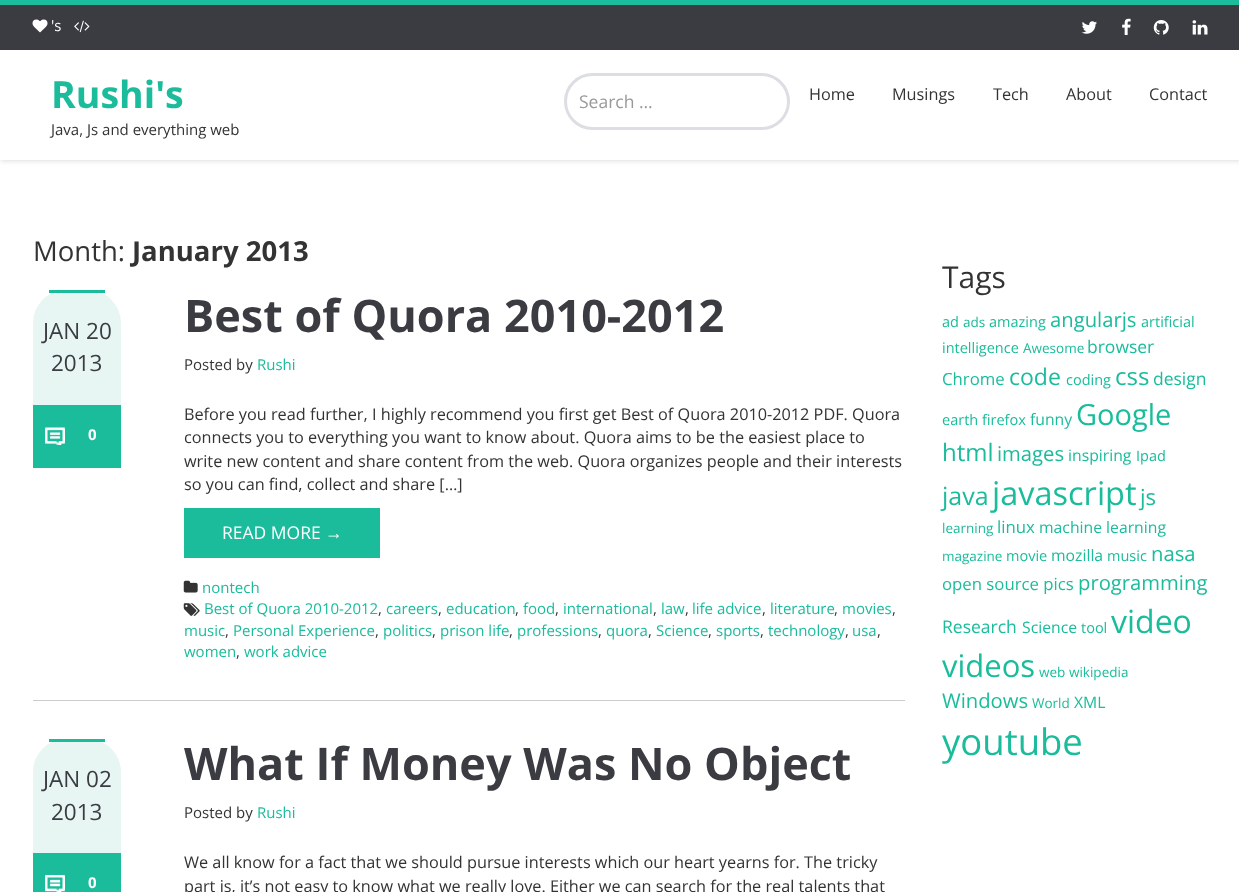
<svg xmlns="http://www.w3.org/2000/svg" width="1239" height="892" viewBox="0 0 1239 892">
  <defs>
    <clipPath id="clip1"><rect x="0" y="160" width="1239" height="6"/></clipPath>
  </defs>
  <rect width="100%" height="100%" fill="rgb(255,255,255)"/>
  <g clip-path="url(#clip1)">
    <rect x="1" y="1" width="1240" height="160" fill="rgb(221,221,221)" filter="blur(2.5px)"/>
  </g>
  <rect x="0" y="5" width="1239" height="45" fill="rgb(58,60,65)"/>
  <rect x="0" y="0" width="1239" height="5" fill="rgb(26,188,156)"/>
  <image x="32" y="19" width="16" height="14" href="pic1.png"/>
  <text x="51" y="31" font-family="Open Sans" font-size="15" fill="rgb(255,255,255)">'s</text>
  <image x="74" y="20" width="16" height="13" href="pic2.png"/>
  <image x="1081" y="21" width="16" height="13" href="pic3.png"/>
  <image x="1122" y="18" width="9" height="17" href="pic4.png"/>
  <image x="1153" y="20" width="16" height="15" href="pic5.png"/>
  <image x="1192" y="20" width="16" height="15" href="pic6.png"/>
  <text x="51" y="108" font-family="Open Sans" font-size="37.5" font-weight="bold" fill="rgb(26,188,156)">Rushi's</text>
  <text x="51" y="135" font-family="Open Sans" font-size="15" fill="rgb(51,51,51)">Java, Js and everything web</text>
  <rect x="565.5" y="74.5" width="223" height="54" rx="27" fill="none" stroke="rgb(220,222,228)" stroke-width="3"/>
  <text x="579" y="108" font-family="Open Sans" font-size="17.5" fill="rgb(153,153,153)">Search …</text>
  <g font-family="Open Sans" font-size="16.25" fill="rgb(51,51,51)">
    <text x="809" y="100">Home</text>
    <text x="892" y="100">Musings</text>
    <text x="993" y="100">Tech</text>
    <text x="1066" y="100">About</text>
    <text x="1149" y="100">Contact</text>
  </g>
  <text x="33" y="261" font-family="Open Sans" font-size="27.5" fill="rgb(51,51,51)">Month:</text>
  <text x="132" y="261" font-family="Open Sans" font-size="27.5" font-weight="bold" fill="rgb(51,51,51)">January 2013</text>
  <rect x="33" y="700" width="872" height="1" fill="rgb(204,204,204)"/>
  <rect x="33" y="290" width="88" height="178" rx="33" fill="rgb(231,246,243)"/>
  <rect x="49" y="290" width="56" height="3" fill="rgb(26,188,156)"/>
  <g font-family="Open Sans" font-size="22.5" fill="rgb(58,60,65)">
    <text x="43" y="339">JAN 20</text>
    <text x="51" y="371">2013</text>
  </g>
  <rect x="33" y="405" width="88" height="63" fill="rgb(26,188,156)"/>
  <image x="45" y="427" width="20" height="18" href="pic7.png"/>
  <text x="88" y="440" font-family="Open Sans" font-size="15" font-weight="bold" fill="rgb(255,255,255)">0</text>
  <text x="184" y="332" font-family="Open Sans" font-size="45" font-weight="bold" fill="rgb(58,60,65)">Best of Quora 2010-2012</text>
  <text x="184" y="370" font-family="Open Sans" font-size="15" fill="rgb(51,51,51)">Posted by</text>
  <text x="257" y="370" font-family="Open Sans" font-size="15" fill="rgb(26,188,156)">Rushi</text>
  <g font-family="Open Sans" font-size="16.25" fill="rgb(51,51,51)">
    <text>
      <tspan x="184" y="420">Before you read further, I highly recommend you first get Best of Quora 2010-2012 PDF. Quora</tspan>
      <tspan x="184" y="443">connects you to everything you want to know about. Quora aims to be the easiest place to</tspan>
      <tspan x="184" y="467">write new content and share content from the web. Quora organizes people and their interests</tspan>
      <tspan x="184" y="490">so you can find, collect and share […]</tspan>
    </text>
  </g>
  <rect x="184" y="508" width="196" height="50" fill="rgb(26,188,156)"/>
  <text x="222" y="539" font-family="Open Sans" font-size="17.5" fill="rgb(255,255,255)">READ MORE</text>
  <text x="325" y="539" font-family="Liberation Sans" font-size="17.5" fill="rgb(255,255,255)">→</text>
  <image x="183" y="580" width="15" height="13" href="pic8.png"/>
  <text x="202" y="593" font-family="Open Sans" font-size="15" fill="rgb(26,188,156)">nontech</text>
  <image x="183" y="603" width="17" height="13" href="pic9.png"/>
  <text x="204" y="614" font-family="Open Sans" font-size="15" fill="rgb(26,188,156)">Best of Quora 2010-2012</text>
  <text x="378" y="614" font-family="Open Sans" font-size="15" fill="rgb(51,51,51)">,</text>
  <text x="386" y="614" font-family="Open Sans" font-size="15" fill="rgb(26,188,156)">careers</text>
  <text x="438" y="614" font-family="Open Sans" font-size="15" fill="rgb(51,51,51)">,</text>
  <text x="446" y="614" font-family="Open Sans" font-size="15" fill="rgb(26,188,156)">education</text>
  <text x="515" y="614" font-family="Open Sans" font-size="15" fill="rgb(51,51,51)">,</text>
  <text x="523" y="614" font-family="Open Sans" font-size="15" fill="rgb(26,188,156)">food</text>
  <text x="555" y="614" font-family="Open Sans" font-size="15" fill="rgb(51,51,51)">,</text>
  <text x="563" y="614" font-family="Open Sans" font-size="15" fill="rgb(26,188,156)">international</text>
  <text x="653" y="614" font-family="Open Sans" font-size="15" fill="rgb(51,51,51)">,</text>
  <text x="661" y="614" font-family="Open Sans" font-size="15" fill="rgb(26,188,156)">law</text>
  <text x="685" y="614" font-family="Open Sans" font-size="15" fill="rgb(51,51,51)">,</text>
  <text x="692" y="614" font-family="Open Sans" font-size="15" fill="rgb(26,188,156)">life advice</text>
  <text x="762" y="614" font-family="Open Sans" font-size="15" fill="rgb(51,51,51)">,</text>
  <text x="770" y="614" font-family="Open Sans" font-size="15" fill="rgb(26,188,156)">literature</text>
  <text x="834" y="614" font-family="Open Sans" font-size="15" fill="rgb(51,51,51)">,</text>
  <text x="842" y="614" font-family="Open Sans" font-size="15" fill="rgb(26,188,156)">movies</text>
  <text x="892" y="614" font-family="Open Sans" font-size="15" fill="rgb(51,51,51)">,</text>
  <text x="184" y="636" font-family="Open Sans" font-size="15" fill="rgb(26,188,156)">music</text>
  <text x="225" y="636" font-family="Open Sans" font-size="15" fill="rgb(51,51,51)">,</text>
  <text x="233" y="636" font-family="Open Sans" font-size="15" fill="rgb(26,188,156)">Personal Experience</text>
  <text x="375" y="636" font-family="Open Sans" font-size="15" fill="rgb(51,51,51)">,</text>
  <text x="383" y="636" font-family="Open Sans" font-size="15" fill="rgb(26,188,156)">politics</text>
  <text x="432" y="636" font-family="Open Sans" font-size="15" fill="rgb(51,51,51)">,</text>
  <text x="440" y="636" font-family="Open Sans" font-size="15" fill="rgb(26,188,156)">prison life</text>
  <text x="509" y="636" font-family="Open Sans" font-size="15" fill="rgb(51,51,51)">,</text>
  <text x="517" y="636" font-family="Open Sans" font-size="15" fill="rgb(26,188,156)">professions</text>
  <text x="598" y="636" font-family="Open Sans" font-size="15" fill="rgb(51,51,51)">,</text>
  <text x="606" y="636" font-family="Open Sans" font-size="15" fill="rgb(26,188,156)">quora</text>
  <text x="648" y="636" font-family="Open Sans" font-size="15" fill="rgb(51,51,51)">,</text>
  <text x="656" y="636" font-family="Open Sans" font-size="15" fill="rgb(26,188,156)">Science</text>
  <text x="708" y="636" font-family="Open Sans" font-size="15" fill="rgb(51,51,51)">,</text>
  <text x="716" y="636" font-family="Open Sans" font-size="15" fill="rgb(26,188,156)">sports</text>
  <text x="760" y="636" font-family="Open Sans" font-size="15" fill="rgb(51,51,51)">,</text>
  <text x="768" y="636" font-family="Open Sans" font-size="15" fill="rgb(26,188,156)">technology</text>
  <text x="845" y="636" font-family="Open Sans" font-size="15" fill="rgb(51,51,51)">,</text>
  <text x="852" y="636" font-family="Open Sans" font-size="15" fill="rgb(26,188,156)">usa</text>
  <text x="877" y="636" font-family="Open Sans" font-size="15" fill="rgb(51,51,51)">,</text>
  <text x="184" y="657" font-family="Open Sans" font-size="15" fill="rgb(26,188,156)">women</text>
  <text x="236" y="657" font-family="Open Sans" font-size="15" fill="rgb(51,51,51)">,</text>
  <text x="244" y="657" font-family="Open Sans" font-size="15" fill="rgb(26,188,156)">work advice</text>
  <rect x="33" y="739" width="88" height="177" rx="33" fill="rgb(231,246,243)"/>
  <rect x="49" y="739" width="56" height="3" fill="rgb(26,188,156)"/>
  <g font-family="Open Sans" font-size="22.5" fill="rgb(58,60,65)">
    <text x="43" y="787">JAN 02</text>
    <text x="51" y="820">2013</text>
  </g>
  <rect x="33" y="853" width="88" height="39" fill="rgb(26,188,156)"/>
  <image x="45" y="875" width="20" height="17" href="pic10.png"/>
  <text x="88" y="888" font-family="Open Sans" font-size="15" font-weight="bold" fill="rgb(255,255,255)">0</text>
  <text x="184" y="780" font-family="Open Sans" font-size="45" font-weight="bold" fill="rgb(58,60,65)">What If Money Was No Object</text>
  <text x="184" y="818" font-family="Open Sans" font-size="15" fill="rgb(51,51,51)">Posted by</text>
  <text x="257" y="818" font-family="Open Sans" font-size="15" fill="rgb(26,188,156)">Rushi</text>
  <g font-family="Open Sans" font-size="16.25" fill="rgb(51,51,51)">
    <text>
      <tspan x="184" y="868">We all know for a fact that we should pursue interests which our heart yearns for. The tricky</tspan>
      <tspan x="184" y="892">part is, it’s not easy to know what we really love. Either we can search for the real talents that</tspan>
    </text>
  </g>
  <text x="942" y="288" font-family="Open Sans" font-size="30" fill="rgb(51,51,51)">Tags</text>
  <text x="942" y="327" font-family="Open Sans" font-size="14.5" fill="rgb(26,188,156)">ad</text>
  <text x="963" y="327" font-family="Open Sans" font-size="13.5" fill="rgb(26,188,156)">ads</text>
  <text x="989" y="327" font-family="Open Sans" font-size="14.5" fill="rgb(26,188,156)">amazing</text>
  <text x="1050" y="327" font-family="Open Sans" font-size="20.25" fill="rgb(26,188,156)">angularjs</text>
  <g font-family="Open Sans" font-size="14.5" fill="rgb(26,188,156)">
    <text x="1141" y="327">artificial</text>
    <text x="942" y="353">intelligence</text>
  </g>
  <text x="1023" y="353" font-family="Open Sans" font-size="13.5" fill="rgb(26,188,156)">Awesome</text>
  <text x="1087" y="353" font-family="Open Sans" font-size="17.5" fill="rgb(26,188,156)">browser</text>
  <text x="942" y="385" font-family="Open Sans" font-size="16.75" fill="rgb(26,188,156)">Chrome</text>
  <text x="1009" y="385" font-family="Open Sans" font-size="23" fill="rgb(26,188,156)">code</text>
  <text x="1066" y="385" font-family="Open Sans" font-size="14.5" fill="rgb(26,188,156)">coding</text>
  <text x="1115" y="385" font-family="Open Sans" font-size="24" fill="rgb(26,188,156)">css</text>
  <text x="1153" y="385" font-family="Open Sans" font-size="17.5" fill="rgb(26,188,156)">design</text>
  <g font-family="Open Sans" font-size="14.5" fill="rgb(26,188,156)">
    <text x="942" y="425">earth</text>
    <text x="982" y="425">firefox</text>
  </g>
  <text x="1030" y="425" font-family="Open Sans" font-size="15.75" fill="rgb(26,188,156)">funny</text>
  <text x="1076" y="425" font-family="Open Sans" font-size="29" fill="rgb(26,188,156)">Google</text>
  <text x="942" y="461" font-family="Open Sans" font-size="24" fill="rgb(26,188,156)">html</text>
  <text x="997" y="461" font-family="Open Sans" font-size="20.25" fill="rgb(26,188,156)">images</text>
  <text x="1068" y="461" font-family="Open Sans" font-size="15.75" fill="rgb(26,188,156)">inspiring</text>
  <text x="1136" y="461" font-family="Open Sans" font-size="14.5" fill="rgb(26,188,156)">Ipad</text>
  <text x="942" y="505" font-family="Open Sans" font-size="25" fill="rgb(26,188,156)">java</text>
  <text x="992" y="505" font-family="Open Sans" font-size="32.5" fill="rgb(26,188,156)">javascript</text>
  <text x="1140" y="505" font-family="Open Sans" font-size="22" fill="rgb(26,188,156)">js</text>
  <text x="942" y="533" font-family="Open Sans" font-size="13.5" fill="rgb(26,188,156)">learning</text>
  <text x="997" y="533" font-family="Open Sans" font-size="16.75" fill="rgb(26,188,156)">linux</text>
  <text x="1039" y="533" font-family="Open Sans" font-size="15.75" fill="rgb(26,188,156)">machine learning</text>
  <text x="942" y="561" font-family="Open Sans" font-size="13.5" fill="rgb(26,188,156)">magazine</text>
  <text x="1006" y="561" font-family="Open Sans" font-size="14.5" fill="rgb(26,188,156)">movie</text>
  <text x="1051" y="561" font-family="Open Sans" font-size="15.75" fill="rgb(26,188,156)">mozilla</text>
  <text x="1107" y="561" font-family="Open Sans" font-size="14.5" fill="rgb(26,188,156)">music</text>
  <text x="1151" y="561" font-family="Open Sans" font-size="20.25" fill="rgb(26,188,156)">nasa</text>
  <text x="942" y="590" font-family="Open Sans" font-size="16.75" fill="rgb(26,188,156)">open source pics</text>
  <text x="1078" y="590" font-family="Open Sans" font-size="20.25" fill="rgb(26,188,156)">programming</text>
  <text x="942" y="633" font-family="Open Sans" font-size="17.5" fill="rgb(26,188,156)">Research</text>
  <text x="1022" y="633" font-family="Open Sans" font-size="15.75" fill="rgb(26,188,156)">Science</text>
  <text x="1081" y="633" font-family="Open Sans" font-size="14.5" fill="rgb(26,188,156)">tool</text>
  <text x="1111" y="633" font-family="Open Sans" font-size="32" fill="rgb(26,188,156)">video</text>
  <text x="942" y="677" font-family="Open Sans" font-size="31" fill="rgb(26,188,156)">videos</text>
  <g font-family="Open Sans" font-size="13.5" fill="rgb(26,188,156)">
    <text x="1039" y="677">web</text>
    <text x="1069" y="677">wikipedia</text>
  </g>
  <text x="942" y="708" font-family="Open Sans" font-size="20.25" fill="rgb(26,188,156)">Windows</text>
  <text x="1032" y="708" font-family="Open Sans" font-size="13.5" fill="rgb(26,188,156)">World</text>
  <text x="1074" y="708" font-family="Open Sans" font-size="15.75" fill="rgb(26,188,156)">XML</text>
  <text x="942" y="755" font-family="Open Sans" font-size="36.5" fill="rgb(26,188,156)">youtube</text>
</svg>
